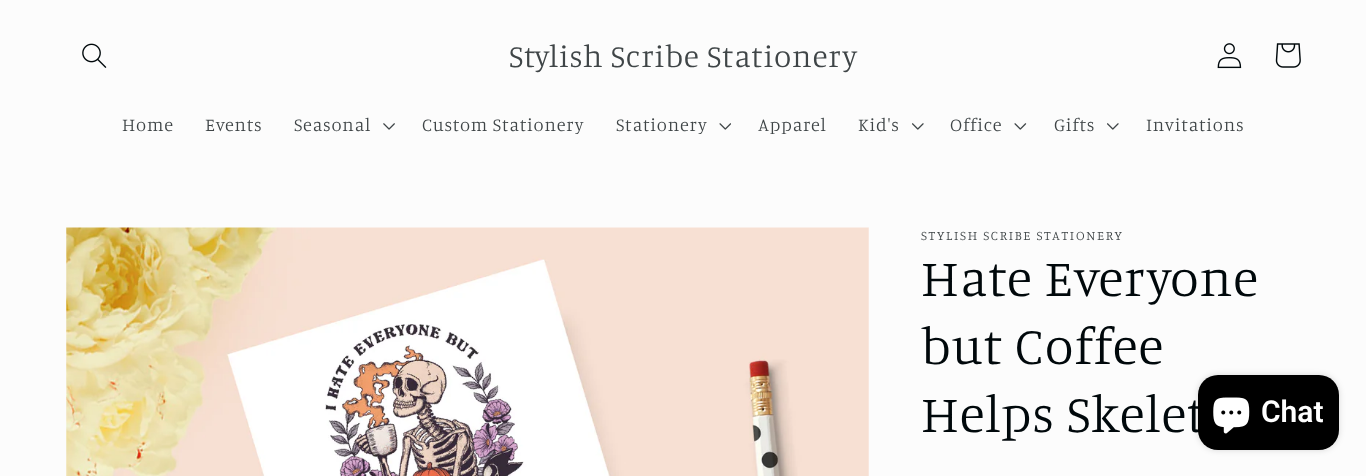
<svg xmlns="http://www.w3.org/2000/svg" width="1366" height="476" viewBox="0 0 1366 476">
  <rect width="100%" height="100%" fill="rgb(252,252,252)"/>
  <image x="82" y="43" width="25" height="25" href="pic1.png"/>
  <text x="509" y="67" font-family="Manuale" font-size="31.5" font-weight="300" letter-spacing="0.8" fill="rgb(63,69,71)">Stylish Scribe Stationery</text>
  <image x="1217" y="43" width="25" height="26" href="pic2.png"/>
  <image x="1275" y="43" width="26" height="25" href="pic3.png"/>
  <g font-family="Manuale" font-size="18.4" font-weight="300" letter-spacing="0.8" fill="rgb(63,69,71)">
    <text x="122" y="131">Home</text>
    <text x="205" y="131">Events</text>
    <text x="294" y="131">Seasonal</text>
  </g>
  <image x="383" y="123" width="12" height="7" href="pic4.png"/>
  <g font-family="Manuale" font-size="18.4" font-weight="300" letter-spacing="0.8" fill="rgb(63,69,71)">
    <text x="422" y="131">Custom Stationery</text>
    <text x="616" y="131">Stationery</text>
  </g>
  <image x="719" y="123" width="12" height="7" href="pic5.png"/>
  <g font-family="Manuale" font-size="18.4" font-weight="300" letter-spacing="0.8" fill="rgb(63,69,71)">
    <text x="758" y="131">Apparel</text>
    <text x="858" y="131">Kid's</text>
  </g>
  <image x="912" y="123" width="12" height="7" href="pic6.png"/>
  <text x="950" y="131" font-family="Manuale" font-size="18.4" font-weight="300" letter-spacing="0.8" fill="rgb(63,69,71)">Office</text>
  <image x="1014" y="123" width="13" height="7" href="pic7.png"/>
  <text x="1054" y="131" font-family="Manuale" font-size="18.4" font-weight="300" letter-spacing="0.8" fill="rgb(63,69,71)">Gifts</text>
  <image x="1107" y="123" width="12" height="7" href="pic6.png"/>
  <text x="1146" y="131" font-family="Manuale" font-size="18.4" font-weight="300" letter-spacing="0.8" fill="rgb(63,69,71)">Invitations</text>
  <image x="66" y="227" width="803" height="249" href="pic8.png"/>
  <text x="921" y="240" font-family="Manuale" font-size="13.1" font-weight="300" letter-spacing="1.7" fill="rgb(63,69,71)">STYLISH SCRIBE STATIONERY</text>
  <g font-family="Manuale" font-size="52.5" font-weight="300" letter-spacing="0.8" fill="rgb(0,8,11)">
    <text>
      <tspan x="921" y="296">Hate Everyone</tspan>
      <tspan x="921" y="364">but Coffee</tspan>
      <tspan x="921" y="432">Helps Skelet</tspan>
    </text>
  </g>
  <rect x="1198" y="375" width="141" height="75" rx="20" fill="rgba(0,0,0,0.15)" filter="blur(3px)"/>
  <rect x="1198" y="375" width="141" height="75" rx="20" fill="rgb(0,0,0)"/>
  <image x="1213" y="397" width="37" height="37" href="pic9.png"/>
  <text x="1261" y="422" font-family="Roboto" font-size="30" font-weight="600" fill="rgb(255,255,255)">Chat</text>
</svg>
